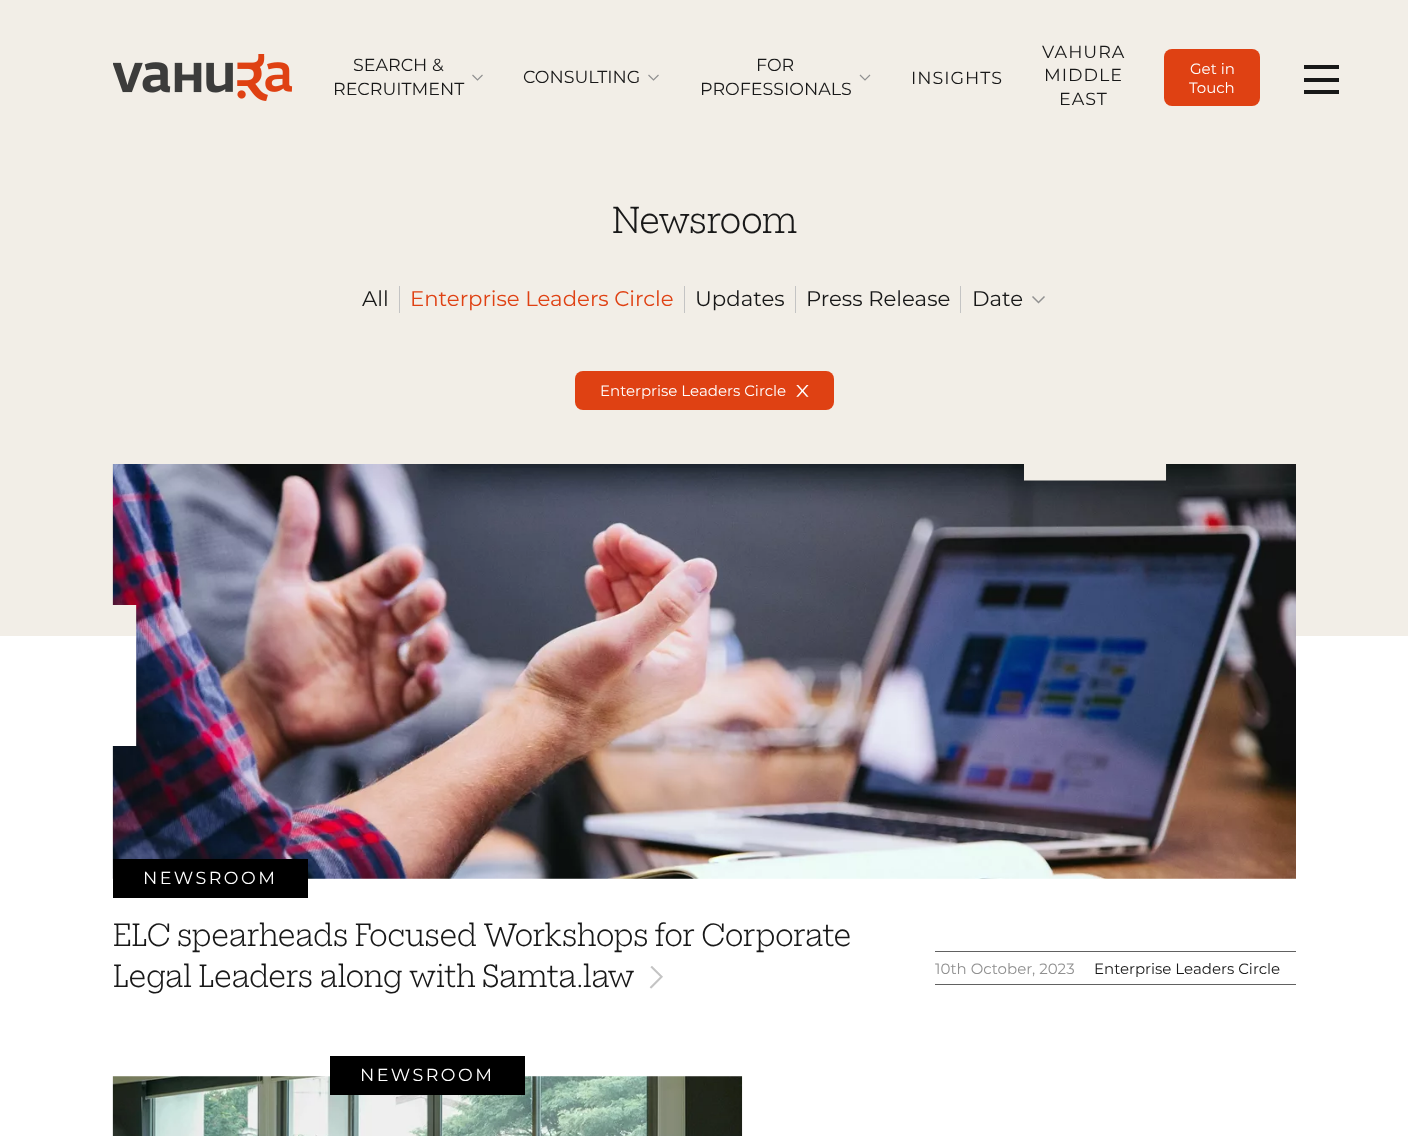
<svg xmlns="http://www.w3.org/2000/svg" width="1408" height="1136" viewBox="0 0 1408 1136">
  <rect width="100%" height="100%" fill="rgb(255,255,255)"/>
  <rect x="0" y="0" width="1408" height="636" fill="rgb(242,238,231)"/>
  <image x="113" y="54" width="180" height="47" href="pic1.png"/>
  <text x="353" y="71" font-family="Montserrat" font-size="17.5" fill="rgb(24,24,24)">SEARCH &amp;</text>
  <path d="M472.5 75L477.5 80L482.5 75" fill="none" stroke="rgb(145,145,145)" stroke-width="1.2"/>
  <g font-family="Montserrat" font-size="17.5" fill="rgb(24,24,24)">
    <text x="333" y="95">RECRUITMENT</text>
    <text x="523" y="83">CONSULTING</text>
  </g>
  <path d="M648.5 75L653.5 80L658.5 75" fill="none" stroke="rgb(145,145,145)" stroke-width="1.2"/>
  <text x="756" y="71" font-family="Montserrat" font-size="17.5" fill="rgb(24,24,24)">FOR</text>
  <path d="M860 75L865 80L870 75" fill="none" stroke="rgb(145,145,145)" stroke-width="1.2"/>
  <text x="700" y="95" font-family="Montserrat" font-size="17.5" fill="rgb(24,24,24)">PROFESSIONALS</text>
  <g font-family="Montserrat" font-size="17.5" letter-spacing="1" fill="rgb(24,24,24)">
    <text x="911" y="84">INSIGHTS</text>
    <text x="1042" y="58">VAHURA</text>
    <text x="1044" y="81">MIDDLE</text>
    <text x="1059" y="105">EAST</text>
  </g>
  <rect x="1164" y="49" width="96" height="57" rx="8" fill="rgb(223,65,19)"/>
  <g font-family="Montserrat" font-size="15" fill="rgb(255,255,255)">
    <text x="1190" y="74">Get in</text>
    <text x="1189" y="93">Touch</text>
  </g>
  <rect x="1304" y="78" width="35" height="4" fill="rgb(24,24,24)"/>
  <rect x="1304" y="65" width="35" height="4" fill="rgb(24,24,24)"/>
  <rect x="1304" y="90" width="35" height="4" fill="rgb(24,24,24)"/>
  <text x="612" y="233" font-family="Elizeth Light" font-size="35" font-weight="300" fill="rgb(24,24,24)">Newsroom</text>
  <text x="362" y="306" font-family="Montserrat" font-size="21.25" fill="rgb(24,24,24)">All</text>
  <rect x="399" y="286" width="1" height="27" fill="rgb(196,196,196)"/>
  <text x="410" y="306" font-family="Montserrat" font-size="21.25" fill="rgb(223,65,19)">Enterprise Leaders Circle</text>
  <rect x="684" y="286" width="1" height="27" fill="rgb(196,196,196)"/>
  <text x="695" y="306" font-family="Montserrat" font-size="21.25" fill="rgb(24,24,24)">Updates</text>
  <rect x="795" y="286" width="1" height="27" fill="rgb(196,196,196)"/>
  <text x="806" y="306" font-family="Montserrat" font-size="21.25" fill="rgb(24,24,24)">Press Release</text>
  <rect x="960" y="286" width="1" height="27" fill="rgb(196,196,196)"/>
  <text x="972" y="306" font-family="Montserrat" font-size="21.25" fill="rgb(24,24,24)">Date</text>
  <path d="M1032.5 296.5L1038.5 302.5L1044.5 296.5" fill="none" stroke="rgb(145,145,145)" stroke-width="1.5"/>
  <rect x="575" y="371" width="259" height="39" rx="8" fill="rgb(223,65,19)"/>
  <text x="600" y="396" font-family="Montserrat" font-size="15" fill="rgb(255,255,255)">Enterprise Leaders Circle</text>
  <image x="796" y="385" width="13" height="12" href="pic2.png"/>
  <image x="112" y="464" width="1184" height="415" href="pic3.png"/>
  <rect x="113" y="859" width="195" height="39" fill="rgb(0,0,0)"/>
  <text x="143" y="884" font-family="Montserrat" font-size="17.5" letter-spacing="2.5" fill="rgb(255,255,255)">NEWSROOM</text>
  <g font-family="Elizeth Light" font-size="30" font-weight="300" fill="rgb(24,24,24)">
    <text>
      <tspan x="113" y="946">ELC spearheads Focused Workshops for Corporate</tspan>
      <tspan x="113" y="987">Legal Leaders along with Samta.law</tspan>
    </text>
  </g>
  <image x="649" y="966" width="14" height="23" href="pic4.png"/>
  <rect x="935" y="951" width="361" height="1" fill="rgb(97,97,97)"/>
  <rect x="935" y="984" width="361" height="1" fill="rgb(97,97,97)"/>
  <text x="935" y="974" font-family="Montserrat" font-size="15" fill="rgb(144,144,144)">10th October, 2023</text>
  <text x="1094" y="974" font-family="Montserrat" font-size="15" fill="rgb(24,24,24)">Enterprise Leaders Circle</text>
  <image x="112" y="1076" width="631" height="60" href="pic5.png"/>
  <rect x="330" y="1056" width="195" height="39" fill="rgb(0,0,0)"/>
  <text x="360" y="1081" font-family="Montserrat" font-size="17.5" letter-spacing="2.5" fill="rgb(255,255,255)">NEWSROOM</text>
</svg>
